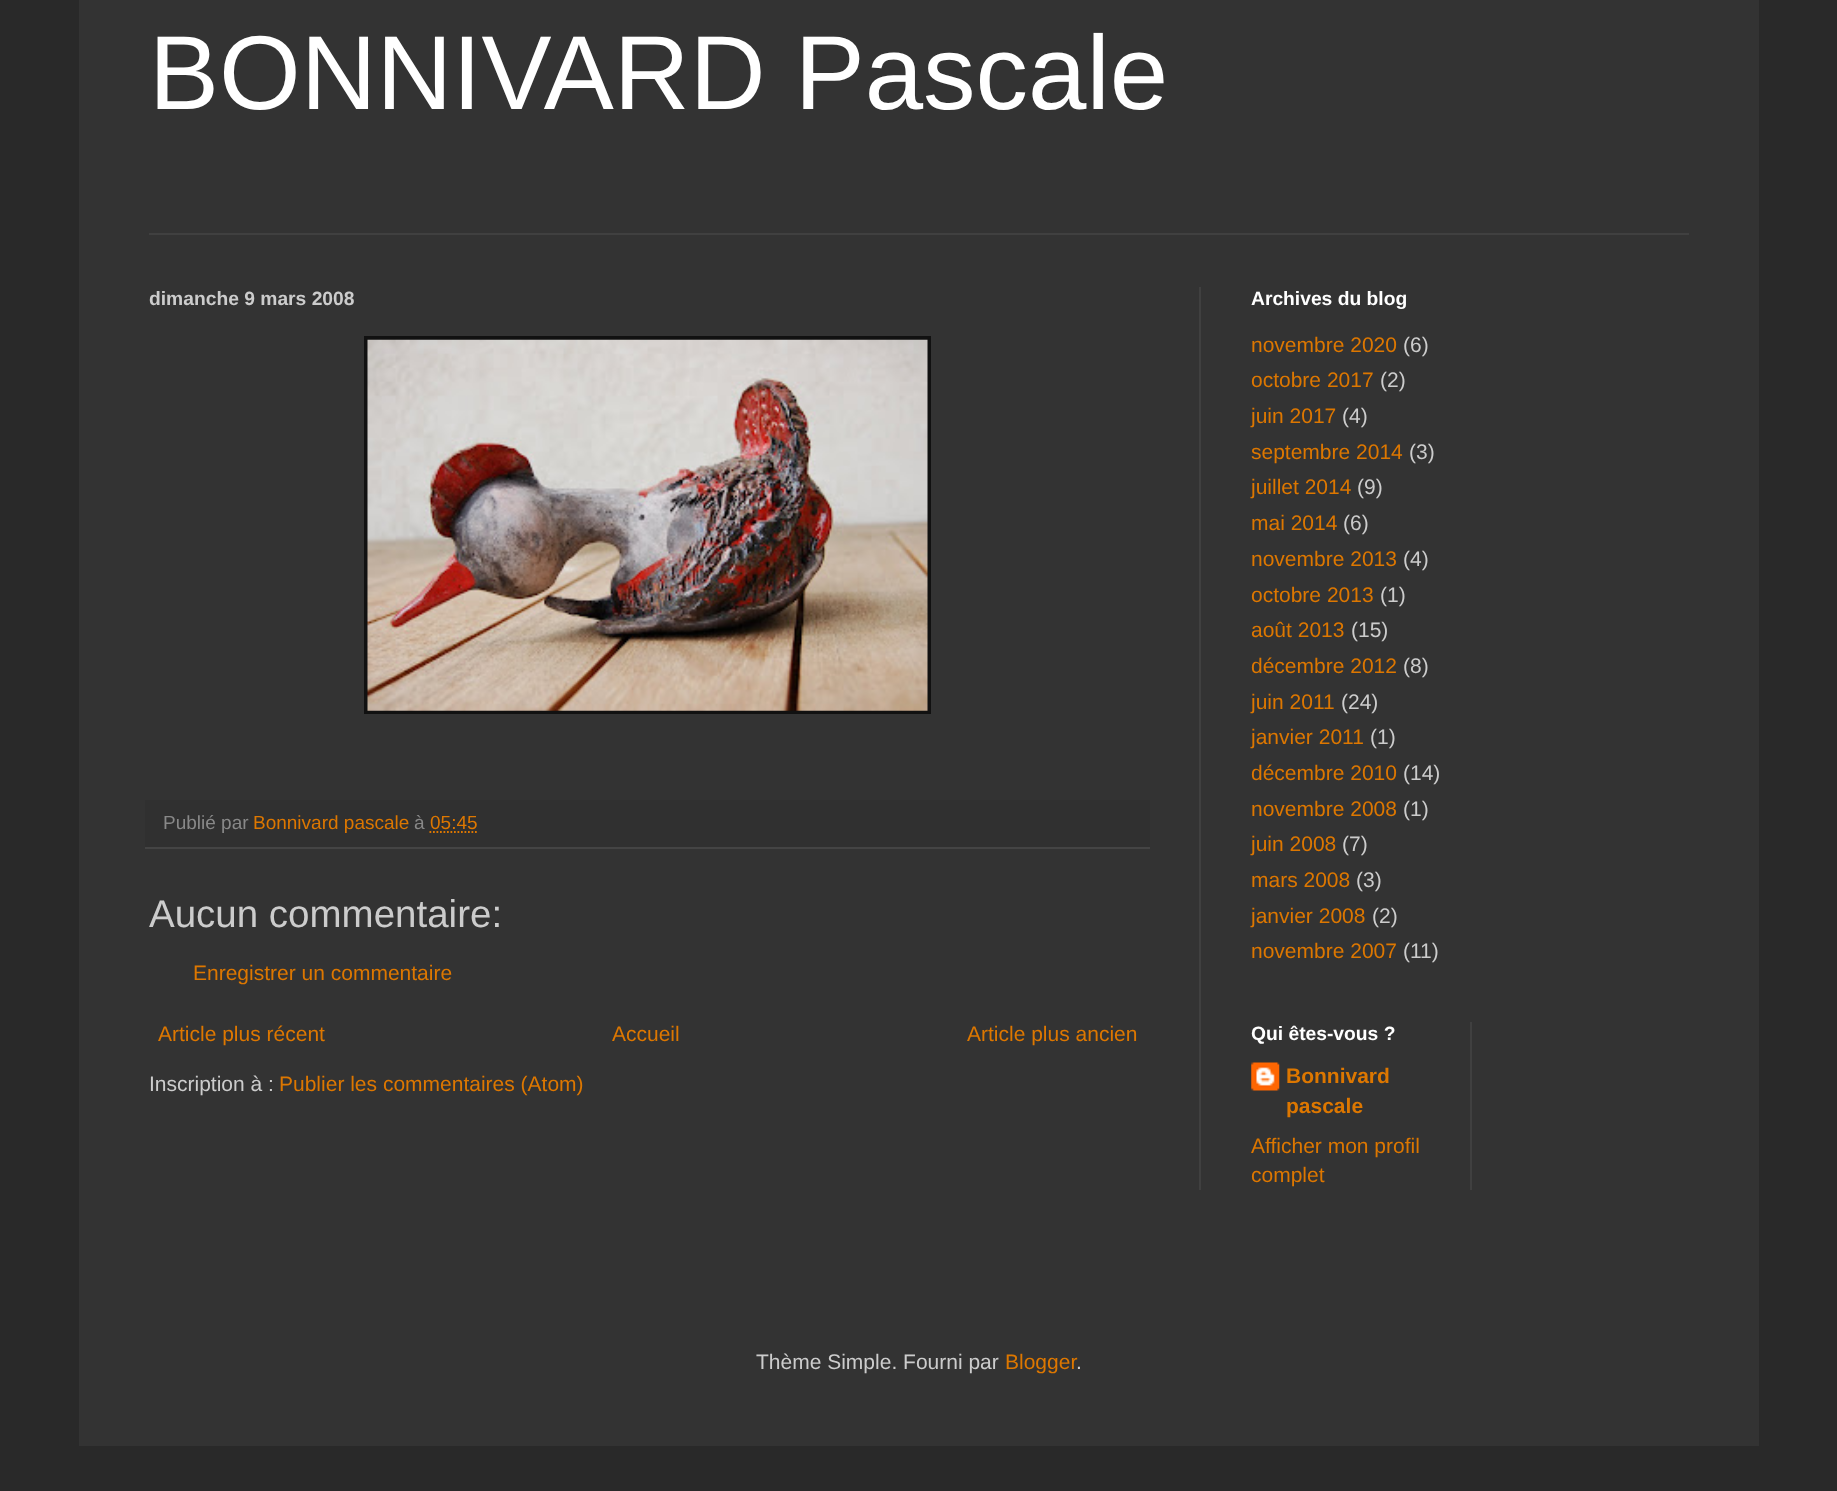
<svg xmlns="http://www.w3.org/2000/svg" width="1837" height="1491" viewBox="0 0 1837 1491">
  <rect width="100%" height="100%" fill="rgb(41,41,41)"/>
  <rect x="79" y="0" width="1680" height="1446" fill="rgb(51,51,51)"/>
  <text x="149" y="109" font-family="Liberation Sans" font-size="105" fill="rgb(255,255,255)">BONNIVARD Pascale</text>
  <rect x="149" y="233" width="1540" height="2" fill="rgb(64,64,64)"/>
  <rect x="1199" y="287" width="2" height="903" fill="rgb(64,64,64)"/>
  <text x="149" y="305" font-family="Liberation Sans" font-size="19.25" font-weight="bold" fill="rgb(204,204,204)">dimanche 9 mars 2008</text>
  <rect x="364" y="336" width="567" height="378" fill="rgb(17,17,17)"/>
  <image x="367" y="339" width="561" height="372" href="pic1.png"/>
  <rect x="145" y="800" width="1005" height="47" fill="rgb(48,48,48)"/>
  <rect x="145" y="847" width="1005" height="2" fill="rgb(68,68,68)"/>
  <text x="163" y="829" font-family="Liberation Sans" font-size="19" fill="rgb(136,136,136)">Publié par</text>
  <text x="253" y="829" font-family="Liberation Sans" font-size="19" fill="rgb(221,119,0)">Bonnivard pascale</text>
  <text x="414" y="829" font-family="Liberation Sans" font-size="19" fill="rgb(136,136,136)">à</text>
  <text x="430" y="829" font-family="Liberation Sans" font-size="19" fill="rgb(221,119,0)">05:45</text>
  <path d="M429.5 832H477" fill="none" stroke="rgb(221,119,0)" stroke-width="1.8" stroke-dasharray="1.75 1.75"/>
  <text x="149" y="927" font-family="Liberation Sans" font-size="38.5" fill="rgb(204,204,204)">Aucun commentaire:</text>
  <g font-family="Liberation Sans" font-size="21" fill="rgb(221,119,0)">
    <text x="193" y="980">Enregistrer un commentaire</text>
    <text x="158" y="1041">Article plus récent</text>
    <text x="612" y="1041">Accueil</text>
    <text x="967" y="1041">Article plus ancien</text>
  </g>
  <text x="149" y="1091" font-family="Liberation Sans" font-size="21" fill="rgb(204,204,204)">Inscription à :</text>
  <text x="279" y="1091" font-family="Liberation Sans" font-size="21" fill="rgb(221,119,0)">Publier les commentaires (Atom)</text>
  <text x="1251" y="305" font-family="Liberation Sans" font-size="19.25" font-weight="bold" fill="rgb(255,255,255)">Archives du blog</text>
  <text x="1251" y="352" font-family="Liberation Sans" font-size="21" fill="rgb(221,119,0)">novembre 2020</text>
  <text x="1403" y="352" font-family="Liberation Sans" font-size="21" fill="rgb(204,204,204)">(6)</text>
  <text x="1251" y="387" font-family="Liberation Sans" font-size="21" fill="rgb(221,119,0)">octobre 2017</text>
  <text x="1380" y="387" font-family="Liberation Sans" font-size="21" fill="rgb(204,204,204)">(2)</text>
  <text x="1251" y="423" font-family="Liberation Sans" font-size="21" fill="rgb(221,119,0)">juin 2017</text>
  <text x="1342" y="423" font-family="Liberation Sans" font-size="21" fill="rgb(204,204,204)">(4)</text>
  <text x="1251" y="459" font-family="Liberation Sans" font-size="21" fill="rgb(221,119,0)">septembre 2014</text>
  <text x="1409" y="459" font-family="Liberation Sans" font-size="21" fill="rgb(204,204,204)">(3)</text>
  <text x="1251" y="494" font-family="Liberation Sans" font-size="21" fill="rgb(221,119,0)">juillet 2014</text>
  <text x="1357" y="494" font-family="Liberation Sans" font-size="21" fill="rgb(204,204,204)">(9)</text>
  <text x="1251" y="530" font-family="Liberation Sans" font-size="21" fill="rgb(221,119,0)">mai 2014</text>
  <text x="1343" y="530" font-family="Liberation Sans" font-size="21" fill="rgb(204,204,204)">(6)</text>
  <text x="1251" y="566" font-family="Liberation Sans" font-size="21" fill="rgb(221,119,0)">novembre 2013</text>
  <text x="1403" y="566" font-family="Liberation Sans" font-size="21" fill="rgb(204,204,204)">(4)</text>
  <text x="1251" y="602" font-family="Liberation Sans" font-size="21" fill="rgb(221,119,0)">octobre 2013</text>
  <text x="1380" y="602" font-family="Liberation Sans" font-size="21" fill="rgb(204,204,204)">(1)</text>
  <text x="1251" y="637" font-family="Liberation Sans" font-size="21" fill="rgb(221,119,0)">août 2013</text>
  <text x="1351" y="637" font-family="Liberation Sans" font-size="21" fill="rgb(204,204,204)">(15)</text>
  <text x="1251" y="673" font-family="Liberation Sans" font-size="21" fill="rgb(221,119,0)">décembre 2012</text>
  <text x="1403" y="673" font-family="Liberation Sans" font-size="21" fill="rgb(204,204,204)">(8)</text>
  <text x="1251" y="709" font-family="Liberation Sans" font-size="21" fill="rgb(221,119,0)">juin 2011</text>
  <text x="1341" y="709" font-family="Liberation Sans" font-size="21" fill="rgb(204,204,204)">(24)</text>
  <text x="1251" y="744" font-family="Liberation Sans" font-size="21" fill="rgb(221,119,0)">janvier 2011</text>
  <text x="1370" y="744" font-family="Liberation Sans" font-size="21" fill="rgb(204,204,204)">(1)</text>
  <text x="1251" y="780" font-family="Liberation Sans" font-size="21" fill="rgb(221,119,0)">décembre 2010</text>
  <text x="1403" y="780" font-family="Liberation Sans" font-size="21" fill="rgb(204,204,204)">(14)</text>
  <text x="1251" y="816" font-family="Liberation Sans" font-size="21" fill="rgb(221,119,0)">novembre 2008</text>
  <text x="1403" y="816" font-family="Liberation Sans" font-size="21" fill="rgb(204,204,204)">(1)</text>
  <text x="1251" y="851" font-family="Liberation Sans" font-size="21" fill="rgb(221,119,0)">juin 2008</text>
  <text x="1342" y="851" font-family="Liberation Sans" font-size="21" fill="rgb(204,204,204)">(7)</text>
  <text x="1251" y="887" font-family="Liberation Sans" font-size="21" fill="rgb(221,119,0)">mars 2008</text>
  <text x="1356" y="887" font-family="Liberation Sans" font-size="21" fill="rgb(204,204,204)">(3)</text>
  <text x="1251" y="923" font-family="Liberation Sans" font-size="21" fill="rgb(221,119,0)">janvier 2008</text>
  <text x="1372" y="923" font-family="Liberation Sans" font-size="21" fill="rgb(204,204,204)">(2)</text>
  <text x="1251" y="958" font-family="Liberation Sans" font-size="21" fill="rgb(221,119,0)">novembre 2007</text>
  <text x="1403" y="958" font-family="Liberation Sans" font-size="21" fill="rgb(204,204,204)">(11)</text>
  <text x="1251" y="1040" font-family="Liberation Sans" font-size="19.25" font-weight="bold" fill="rgb(255,255,255)">Qui êtes-vous ?</text>
  <image x="1251" y="1062" width="29" height="29" href="pic2.png"/>
  <g font-family="Liberation Sans" font-size="21" font-weight="bold" fill="rgb(221,119,0)">
    <text>
      <tspan x="1286" y="1083">Bonnivard</tspan>
      <tspan x="1286" y="1113">pascale</tspan>
    </text>
  </g>
  <g font-family="Liberation Sans" font-size="21" fill="rgb(221,119,0)">
    <text>
      <tspan x="1251" y="1153">Afficher mon profil</tspan>
      <tspan x="1251" y="1182">complet</tspan>
    </text>
  </g>
  <rect x="1470" y="1022" width="2" height="168" fill="rgb(64,64,64)"/>
  <text x="756" y="1369" font-family="Liberation Sans" font-size="21" fill="rgb(204,204,204)">Thème Simple. Fourni par</text>
  <text x="1005" y="1369" font-family="Liberation Sans" font-size="21" fill="rgb(221,119,0)">Blogger</text>
  <text x="1076" y="1369" font-family="Liberation Sans" font-size="21" fill="rgb(204,204,204)">.</text>
</svg>
